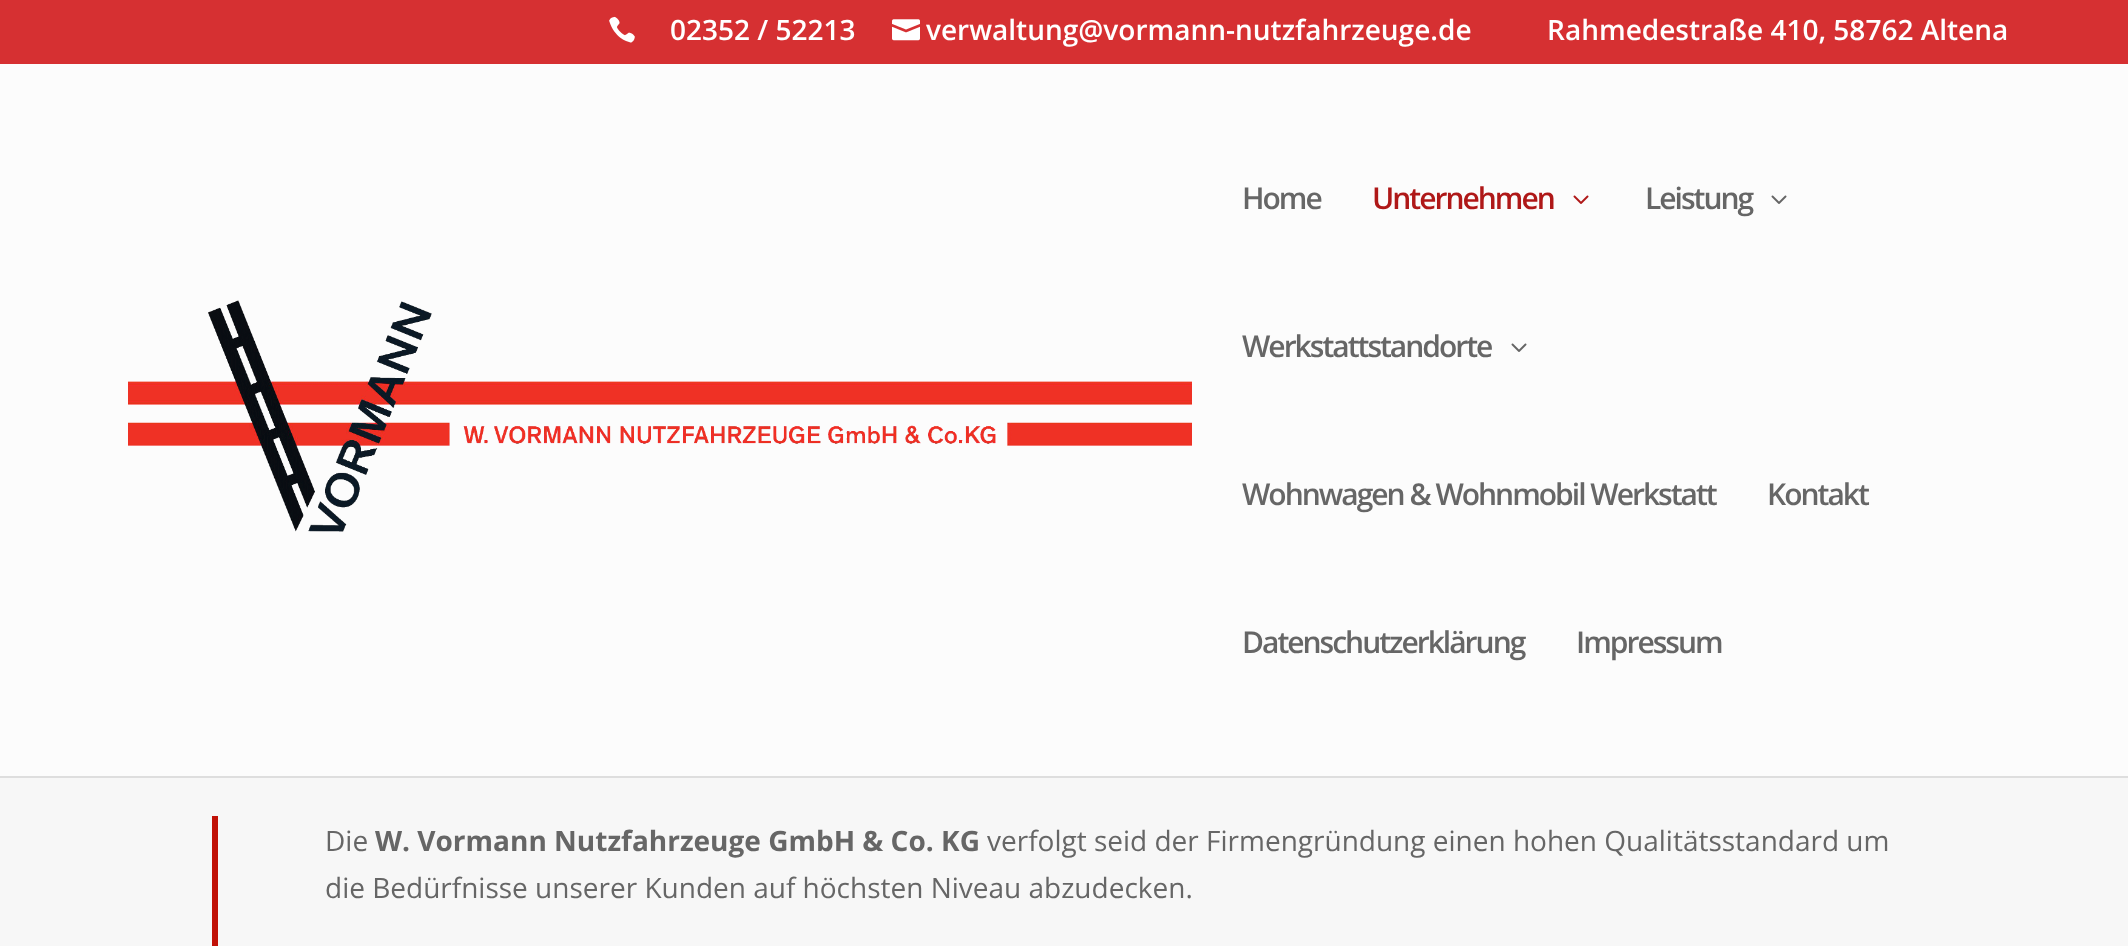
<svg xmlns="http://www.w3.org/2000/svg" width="2128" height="946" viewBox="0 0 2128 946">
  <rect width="100%" height="100%" fill="rgb(247,247,247)"/>
  <rect x="0" y="0" width="2128" height="64" fill="rgb(214,48,50)"/>
  <image x="609" y="16" width="26" height="27" href="pic1.png"/>
  <text x="670" y="40" font-family="Open Sans" font-size="28" font-weight="600" fill="rgb(255,255,255)">02352 / 52213</text>
  <image x="892" y="19" width="28" height="22" href="pic2.png"/>
  <g font-family="Open Sans" font-size="28" font-weight="600" fill="rgb(255,255,255)">
    <text x="926" y="40">verwaltung@vormann-nutzfahrzeuge.de</text>
    <text x="1547" y="40">Rahmedestraße 410, 58762 Altena</text>
  </g>
  <rect x="0" y="776" width="2128" height="2" fill="rgb(222,222,222)"/>
  <rect x="0" y="64" width="2128" height="712" fill="rgb(252,252,252)"/>
  <image x="128" y="300" width="1064" height="232" href="pic3.png"/>
  <text x="1242" y="209" font-family="Open Sans" font-size="30" font-weight="600" letter-spacing="-2" fill="rgb(102,102,102)">Home</text>
  <text x="1372" y="209" font-family="Open Sans" font-size="30" font-weight="600" letter-spacing="-2" fill="rgb(175,24,24)">Unternehmen</text>
  <image x="1573" y="195" width="16" height="9" href="pic4.png"/>
  <text x="1645" y="209" font-family="Open Sans" font-size="30" font-weight="600" letter-spacing="-2" fill="rgb(102,102,102)">Leistung</text>
  <image x="1771" y="195" width="16" height="9" href="pic5.png"/>
  <text x="1242" y="357" font-family="Open Sans" font-size="30" font-weight="600" letter-spacing="-2" fill="rgb(102,102,102)">Werkstattstandorte</text>
  <image x="1511" y="343" width="16" height="9" href="pic5.png"/>
  <g font-family="Open Sans" font-size="30" font-weight="600" letter-spacing="-2" fill="rgb(102,102,102)">
    <text x="1242" y="505">Wohnwagen &amp; Wohnmobil Werkstatt</text>
    <text x="1767" y="505">Kontakt</text>
    <text x="1242" y="653">Datenschutzerklärung</text>
    <text x="1576" y="653">Impressum</text>
  </g>
  <rect x="212" y="816" width="6" height="130" fill="rgb(193,17,7)"/>
  <text x="325" y="851" font-family="Open Sans" font-size="28" fill="rgb(102,102,102)">Die</text>
  <text x="375" y="851" font-family="Open Sans" font-size="28" font-weight="bold" fill="rgb(102,102,102)">W. Vormann Nutzfahrzeuge GmbH &amp; Co. KG</text>
  <g font-family="Open Sans" font-size="28" fill="rgb(102,102,102)">
    <text x="987" y="851">verfolgt seid der Firmengründung einen hohen Qualitätsstandard um</text>
    <text x="325" y="898">die Bedürfnisse unserer Kunden auf höchsten Niveau abzudecken.</text>
  </g>
</svg>
